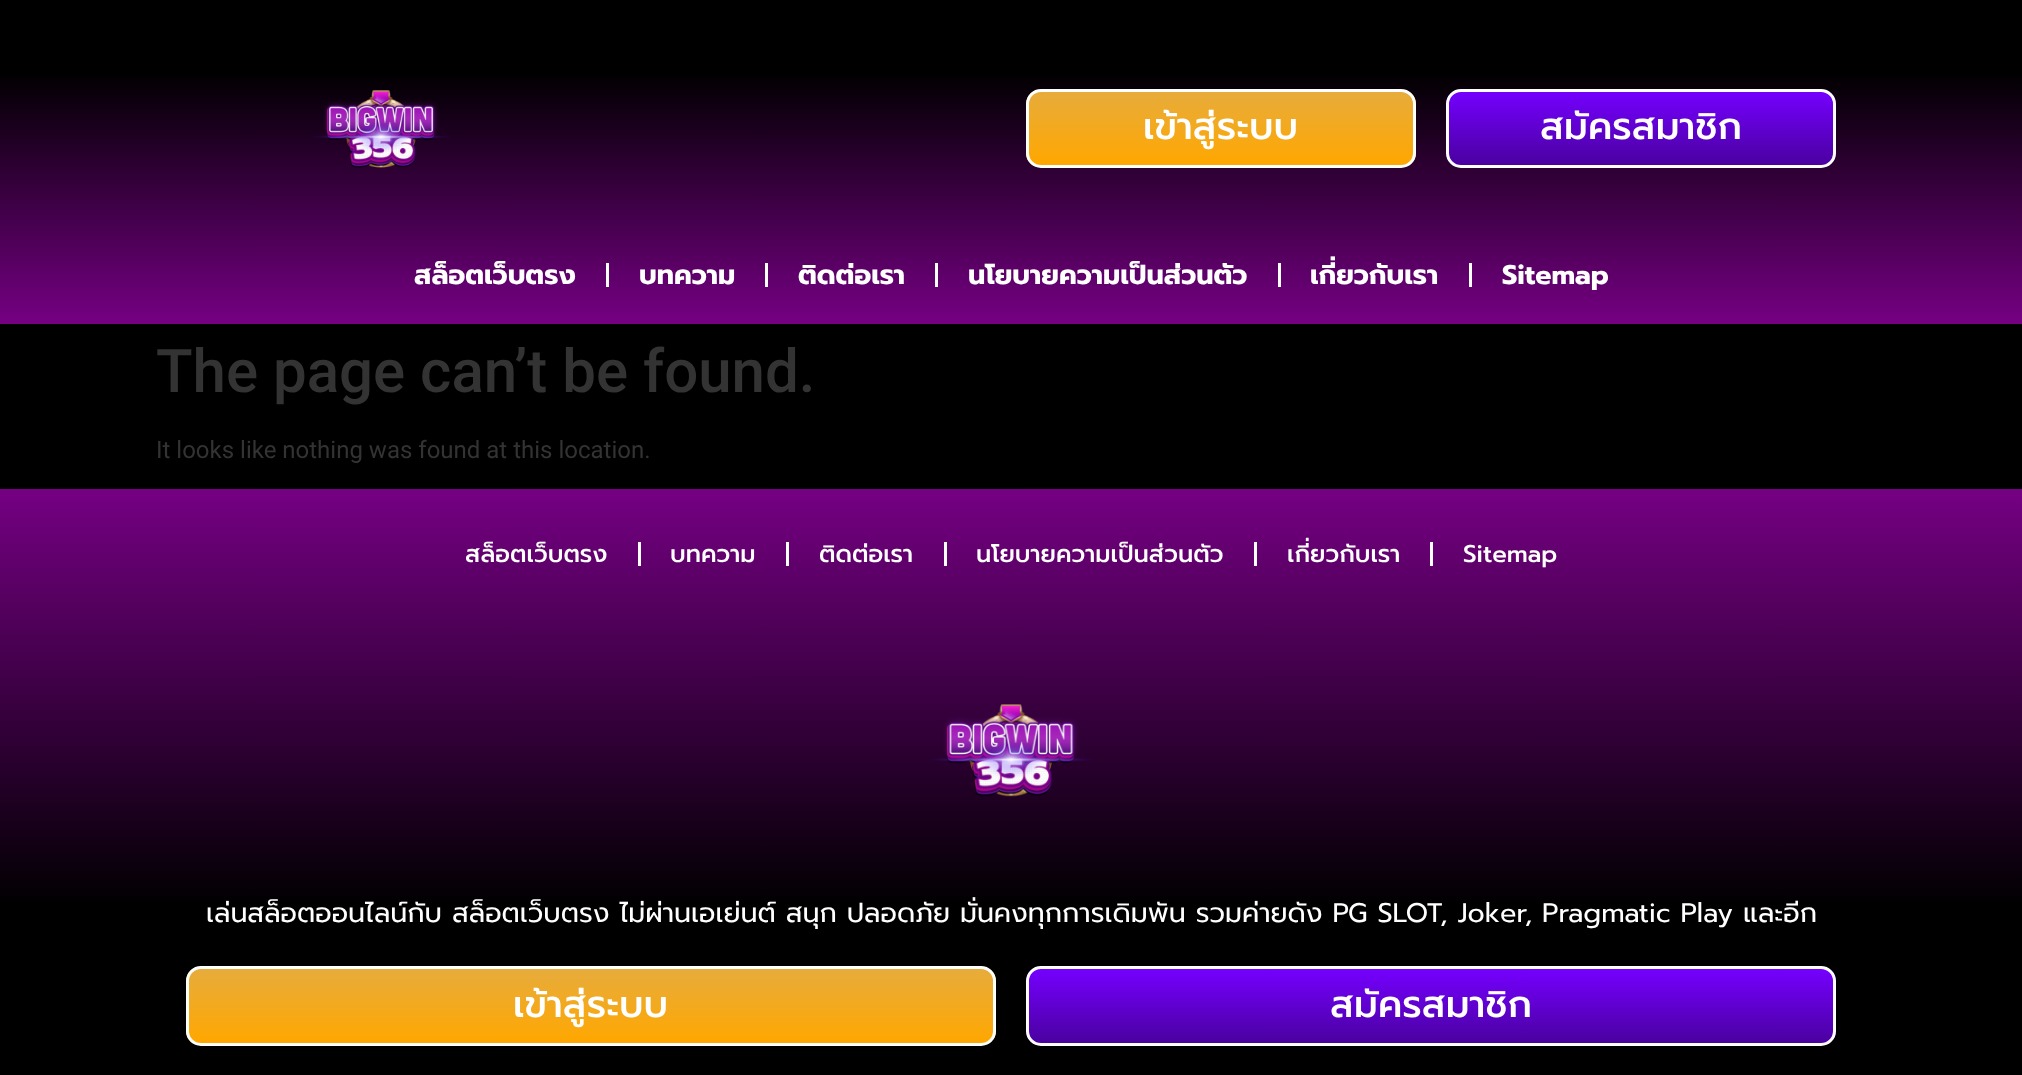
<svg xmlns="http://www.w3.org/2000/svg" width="2022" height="1075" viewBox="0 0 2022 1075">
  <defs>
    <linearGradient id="g1" gradientUnits="userSpaceOnUse" x1="1011" y1="0" x2="1011" y2="324"><stop offset="0.22" stop-color="rgb(0,0,0)"/><stop offset="1" stop-color="rgb(117,0,131)"/></linearGradient>
    <clipPath id="clip1"><rect x="1026" y="89" width="390" height="79" rx="15"/></clipPath>
    <linearGradient id="g2" gradientUnits="userSpaceOnUse" x1="1221" y1="91" x2="1221" y2="165"><stop offset="0" stop-color="rgb(231,172,60)"/><stop offset="1" stop-color="rgb(255,167,0)"/></linearGradient>
    <clipPath id="clip2"><rect x="1446" y="89" width="390" height="79" rx="15"/></clipPath>
    <linearGradient id="g3" gradientUnits="userSpaceOnUse" x1="1641" y1="91" x2="1641" y2="165"><stop offset="0" stop-color="rgb(117,0,255)"/><stop offset="1" stop-color="rgb(74,1,160)"/></linearGradient>
    <linearGradient id="g4" gradientUnits="userSpaceOnUse" x1="1011" y1="489" x2="1011" y2="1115"><stop offset="0" stop-color="rgb(117,0,131)"/><stop offset="0.67" stop-color="rgb(0,0,0)"/></linearGradient>
    <clipPath id="clip3"><rect x="186" y="966" width="810" height="80" rx="15"/></clipPath>
    <linearGradient id="g5" gradientUnits="userSpaceOnUse" x1="591" y1="969" x2="591" y2="1043"><stop offset="0" stop-color="rgb(231,172,60)"/><stop offset="1" stop-color="rgb(255,167,0)"/></linearGradient>
    <clipPath id="clip4"><rect x="1026" y="966" width="810" height="80" rx="15"/></clipPath>
    <linearGradient id="g6" gradientUnits="userSpaceOnUse" x1="1431" y1="969" x2="1431" y2="1043"><stop offset="0" stop-color="rgb(117,0,255)"/><stop offset="1" stop-color="rgb(74,1,160)"/></linearGradient>
  </defs>
  <rect width="100%" height="100%" fill="rgb(0,0,0)"/>
  <rect x="0" y="76" width="2022" height="248" fill="url(#g1)"/>
  <image x="312" y="90" width="138" height="78" href="pic1.png"/>
  <g clip-path="url(#clip1)">
    <rect x="1026" y="92" width="390" height="73" fill="url(#g2)"/>
  </g>
  <rect x="1027.5" y="90.5" width="387" height="76" rx="13.5" fill="none" stroke="rgb(255,255,255)" stroke-width="3"/>
  <text x="1143" y="139" font-family="Prompt" font-size="37.5" font-weight="500" fill="rgb(255,255,255)">เข้าสู่ระบบ</text>
  <g clip-path="url(#clip2)">
    <rect x="1446" y="92" width="390" height="73" fill="url(#g3)"/>
  </g>
  <rect x="1447.5" y="90.5" width="387" height="76" rx="13.5" fill="none" stroke="rgb(255,255,255)" stroke-width="3"/>
  <text x="1540" y="139" font-family="Prompt" font-size="37.5" font-weight="500" fill="rgb(255,255,255)">สมัครสมาชิก</text>
  <text x="414" y="284" font-family="Prompt" font-size="27" font-weight="bold" fill="rgb(255,255,255)">สล็อตเว็บตรง</text>
  <rect x="606" y="263" width="3" height="24" fill="rgb(255,255,255)"/>
  <text x="639" y="284" font-family="Prompt" font-size="27" font-weight="bold" fill="rgb(255,255,255)">บทความ</text>
  <rect x="765" y="263" width="3" height="24" fill="rgb(255,255,255)"/>
  <text x="798" y="284" font-family="Prompt" font-size="27" font-weight="bold" fill="rgb(255,255,255)">ติดต่อเรา</text>
  <rect x="935" y="263" width="3" height="24" fill="rgb(255,255,255)"/>
  <text x="968" y="284" font-family="Prompt" font-size="27" font-weight="bold" fill="rgb(255,255,255)">นโยบายความเป็นส่วนตัว</text>
  <rect x="1278" y="263" width="3" height="24" fill="rgb(255,255,255)"/>
  <text x="1310" y="284" font-family="Prompt" font-size="27" font-weight="bold" fill="rgb(255,255,255)">เกี่ยวกับเรา</text>
  <rect x="1469" y="263" width="3" height="24" fill="rgb(255,255,255)"/>
  <text x="1502" y="284" font-family="Prompt" font-size="27" font-weight="bold" fill="rgb(255,255,255)">Sitemap</text>
  <text x="156" y="392" font-family="Roboto" font-size="60" font-weight="500" fill="rgb(51,51,51)">The page can’t be found.</text>
  <text x="156" y="458" font-family="Roboto" font-size="24" fill="rgb(51,51,51)">It looks like nothing was found at this location.</text>
  <rect x="0" y="489" width="2022" height="411" fill="url(#g4)"/>
  <text x="465" y="562" font-family="Prompt" font-size="24" font-weight="500" fill="rgb(255,255,255)">สล็อตเว็บตรง</text>
  <rect x="638" y="542" width="3" height="24" fill="rgb(255,255,255)"/>
  <text x="670" y="562" font-family="Prompt" font-size="24" font-weight="500" fill="rgb(255,255,255)">บทความ</text>
  <rect x="786" y="542" width="3" height="24" fill="rgb(255,255,255)"/>
  <text x="819" y="562" font-family="Prompt" font-size="24" font-weight="500" fill="rgb(255,255,255)">ติดต่อเรา</text>
  <rect x="944" y="542" width="3" height="24" fill="rgb(255,255,255)"/>
  <text x="976" y="562" font-family="Prompt" font-size="24" font-weight="500" fill="rgb(255,255,255)">นโยบายความเป็นส่วนตัว</text>
  <rect x="1254" y="542" width="3" height="24" fill="rgb(255,255,255)"/>
  <text x="1287" y="562" font-family="Prompt" font-size="24" font-weight="500" fill="rgb(255,255,255)">เกี่ยวกับเรา</text>
  <rect x="1430" y="542" width="3" height="24" fill="rgb(255,255,255)"/>
  <text x="1463" y="562" font-family="Prompt" font-size="24" font-weight="500" fill="rgb(255,255,255)">Sitemap</text>
  <image x="928" y="704" width="166" height="93" href="pic2.png"/>
  <text x="206" y="922" font-family="Prompt" font-size="27" fill="rgb(255,255,255)">เล่นสล็อตออนไลน์กับ สล็อตเว็บตรง ไม่ผ่านเอเย่นต์ สนุก ปลอดภัย มั่นคงทุกการเดิมพัน รวมค่ายดัง PG SLOT, Joker, Pragmatic Play และอีก</text>
  <g clip-path="url(#clip3)">
    <rect x="186" y="969" width="810" height="74" fill="url(#g5)"/>
  </g>
  <rect x="187.5" y="967.5" width="807" height="77" rx="13.5" fill="none" stroke="rgb(255,255,255)" stroke-width="3"/>
  <text x="513" y="1017" font-family="Prompt" font-size="37.5" font-weight="500" fill="rgb(255,255,255)">เข้าสู่ระบบ</text>
  <g clip-path="url(#clip4)">
    <rect x="1026" y="969" width="810" height="74" fill="url(#g6)"/>
  </g>
  <rect x="1027.5" y="967.5" width="807" height="77" rx="13.5" fill="none" stroke="rgb(255,255,255)" stroke-width="3"/>
  <text x="1330" y="1017" font-family="Prompt" font-size="37.5" font-weight="500" fill="rgb(255,255,255)">สมัครสมาชิก</text>
</svg>
